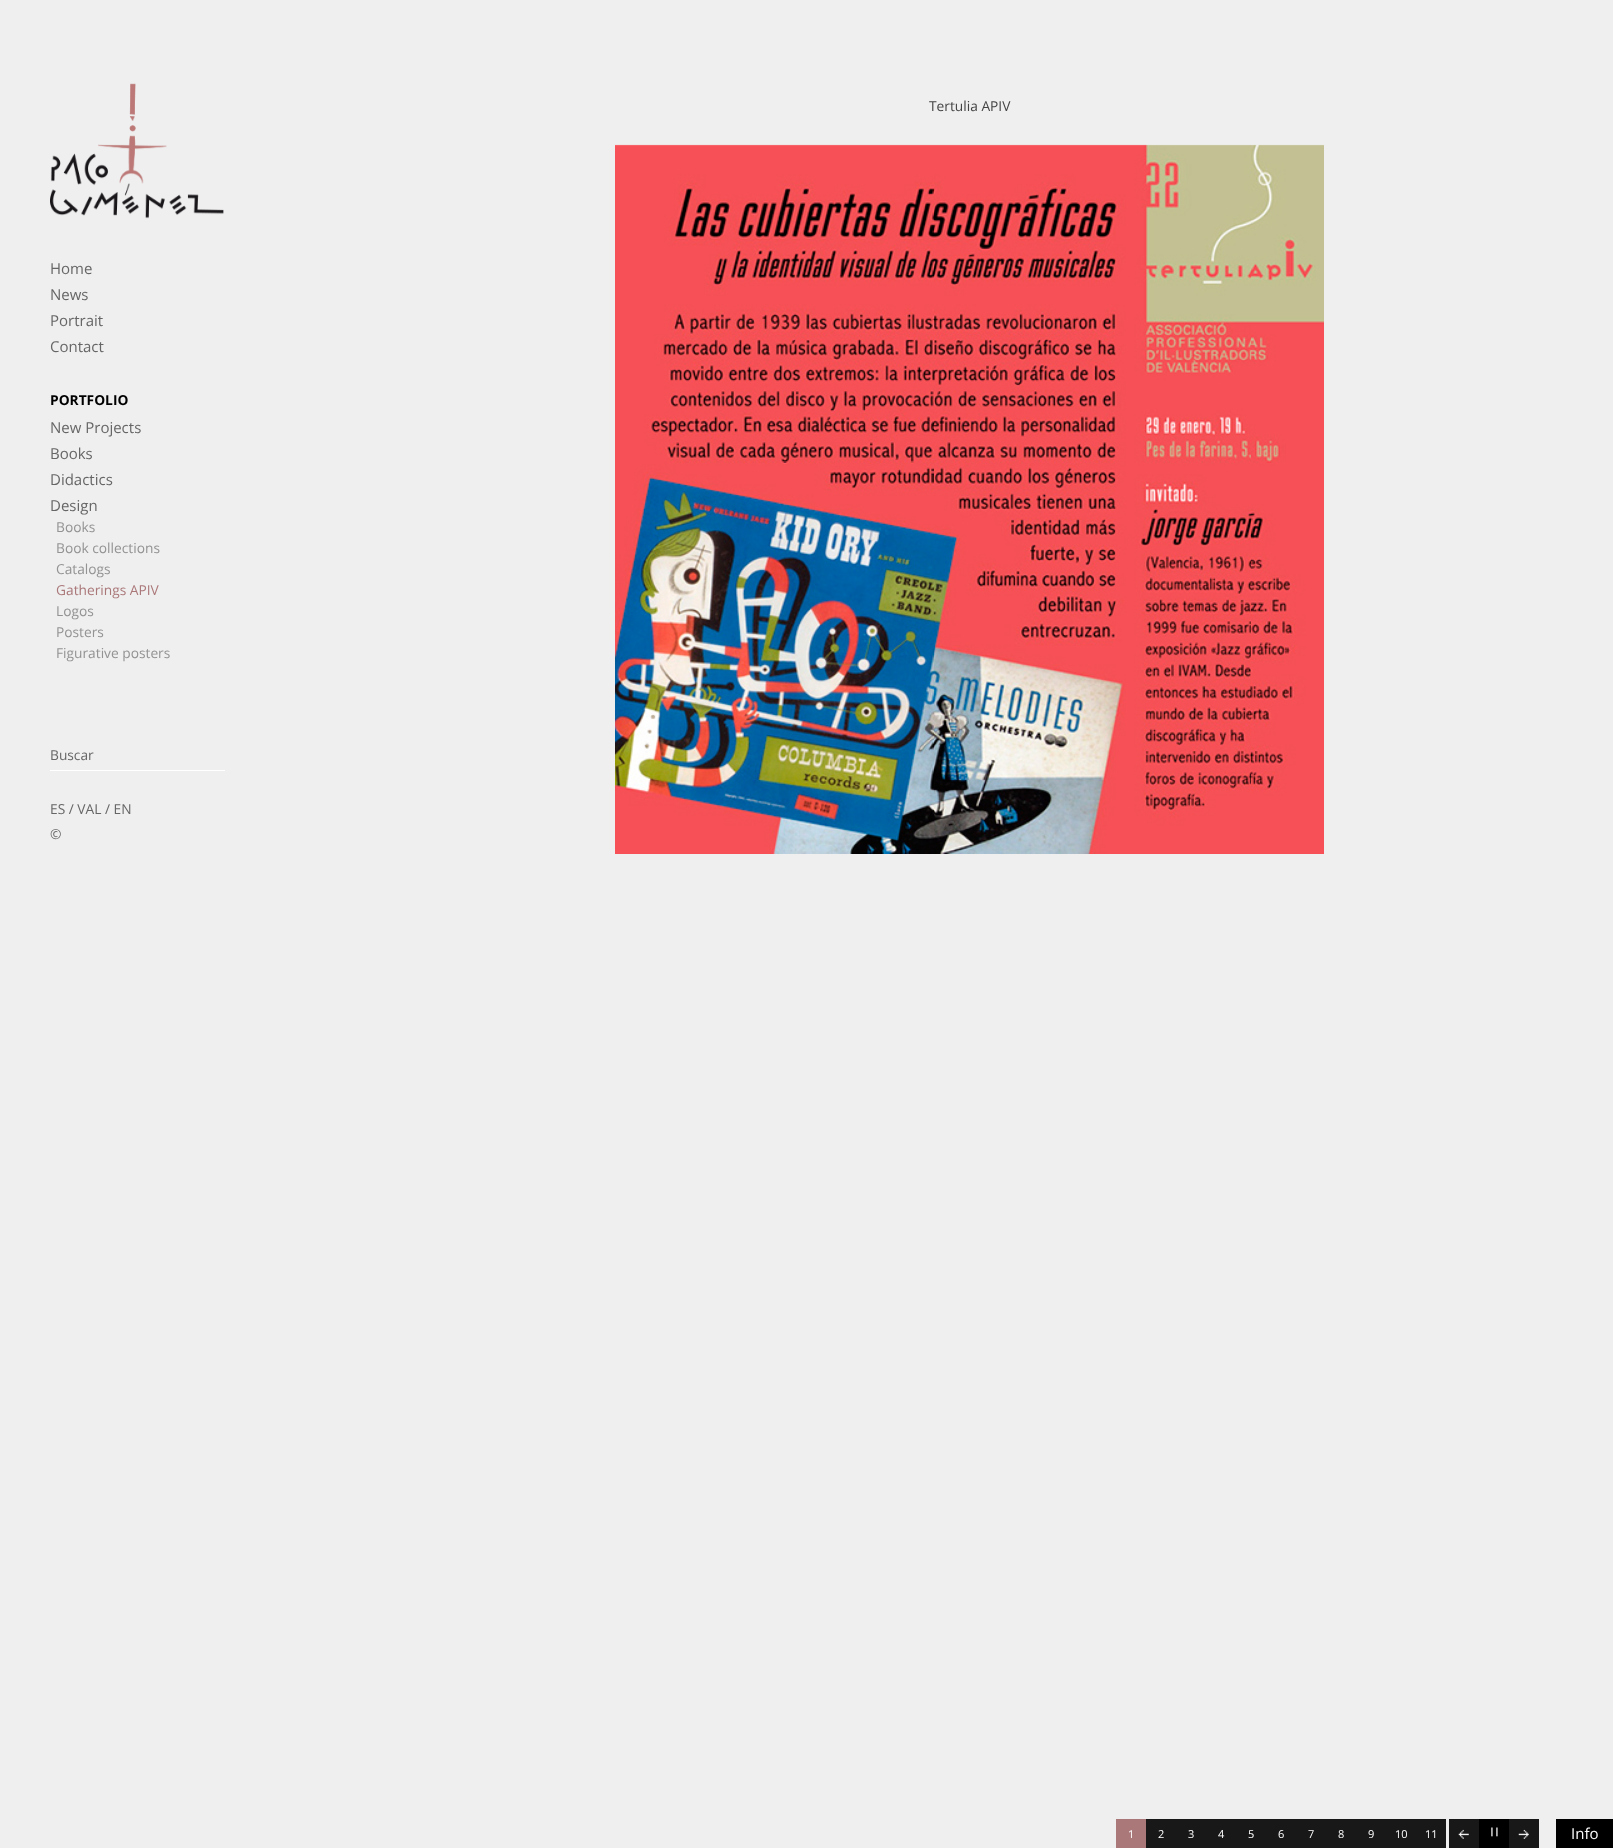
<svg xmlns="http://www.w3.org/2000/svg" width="1613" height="1848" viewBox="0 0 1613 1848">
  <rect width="100%" height="100%" fill="rgb(239,239,239)"/>
  <image x="50" y="83" width="174" height="136" href="pic1.png"/>
  <g font-family="Open Sans" font-size="15" fill="rgb(102,102,102)">
    <text>
      <tspan x="50" y="274">Home</tspan>
      <tspan x="50" y="300">News</tspan>
      <tspan x="50" y="326">Portrait</tspan>
      <tspan x="50" y="352">Contact</tspan>
    </text>
  </g>
  <text x="50" y="405" font-family="Open Sans" font-size="13.75" font-weight="bold" fill="rgb(0,0,0)">PORTFOLIO</text>
  <g font-family="Open Sans" font-size="15" fill="rgb(102,102,102)">
    <text>
      <tspan x="50" y="433">New Projects</tspan>
      <tspan x="50" y="459">Books</tspan>
      <tspan x="50" y="485">Didactics</tspan>
      <tspan x="50" y="511">Design</tspan>
    </text>
  </g>
  <g font-family="Open Sans" font-size="13.75" fill="rgb(148,147,147)">
    <text>
      <tspan x="56" y="532">Books</tspan>
      <tspan x="56" y="553">Book collections</tspan>
      <tspan x="56" y="574">Catalogs</tspan>
    </text>
  </g>
  <text x="56" y="595" font-family="Open Sans" font-size="13.75" fill="rgb(171,120,122)">Gatherings APIV</text>
  <g font-family="Open Sans" font-size="13.75" fill="rgb(148,147,147)">
    <text>
      <tspan x="56" y="616">Logos</tspan>
      <tspan x="56" y="637">Posters</tspan>
      <tspan x="56" y="658">Figurative posters</tspan>
    </text>
  </g>
  <rect x="50" y="770" width="175" height="1" fill="rgb(255,255,255)"/>
  <g font-family="Open Sans" font-size="13.75" fill="rgb(102,102,102)">
    <text x="50" y="760">Buscar</text>
    <text>
      <tspan x="50" y="814">ES / VAL / EN</tspan>
      <tspan x="50" y="839">©</tspan>
    </text>
  </g>
  <text x="929" y="111" font-family="Open Sans" font-size="13.75" fill="rgb(68,68,68)">Tertulia APIV</text>
  <image x="615" y="144" width="709" height="710" href="pic2.png"/>
  <rect x="1449" y="1819" width="30" height="29" fill="rgb(24,24,24)"/>
  <image x="1458" y="1829" width="11" height="10" href="pic3.png"/>
  <rect x="1509" y="1819" width="30" height="29" fill="rgb(24,24,24)"/>
  <image x="1518" y="1829" width="11" height="10" href="pic4.png"/>
  <rect x="1146" y="1819" width="300" height="29" fill="rgb(24,24,24)"/>
  <rect x="1116" y="1819" width="30" height="29" fill="rgb(171,120,122)"/>
  <g font-family="Open Sans" font-size="11" fill="rgb(255,255,255)">
    <text x="1128" y="1838">1</text>
    <text x="1158" y="1838">2</text>
    <text x="1188" y="1838">3</text>
    <text x="1218" y="1838">4</text>
    <text x="1248" y="1838">5</text>
    <text x="1278" y="1838">6</text>
    <text x="1308" y="1838">7</text>
    <text x="1338" y="1838">8</text>
    <text x="1368" y="1838">9</text>
    <text x="1395" y="1838">10</text>
    <text x="1425" y="1838">11</text>
  </g>
  <rect x="1479" y="1819" width="30" height="29" fill="rgb(0,0,0)"/>
  <image x="1491" y="1827" width="7" height="10" href="pic5.png"/>
  <rect x="1556" y="1819" width="57" height="29" fill="rgb(0,0,0)"/>
  <text x="1571" y="1839" font-family="Open Sans" font-size="15" fill="rgb(255,255,255)">Info</text>
</svg>
